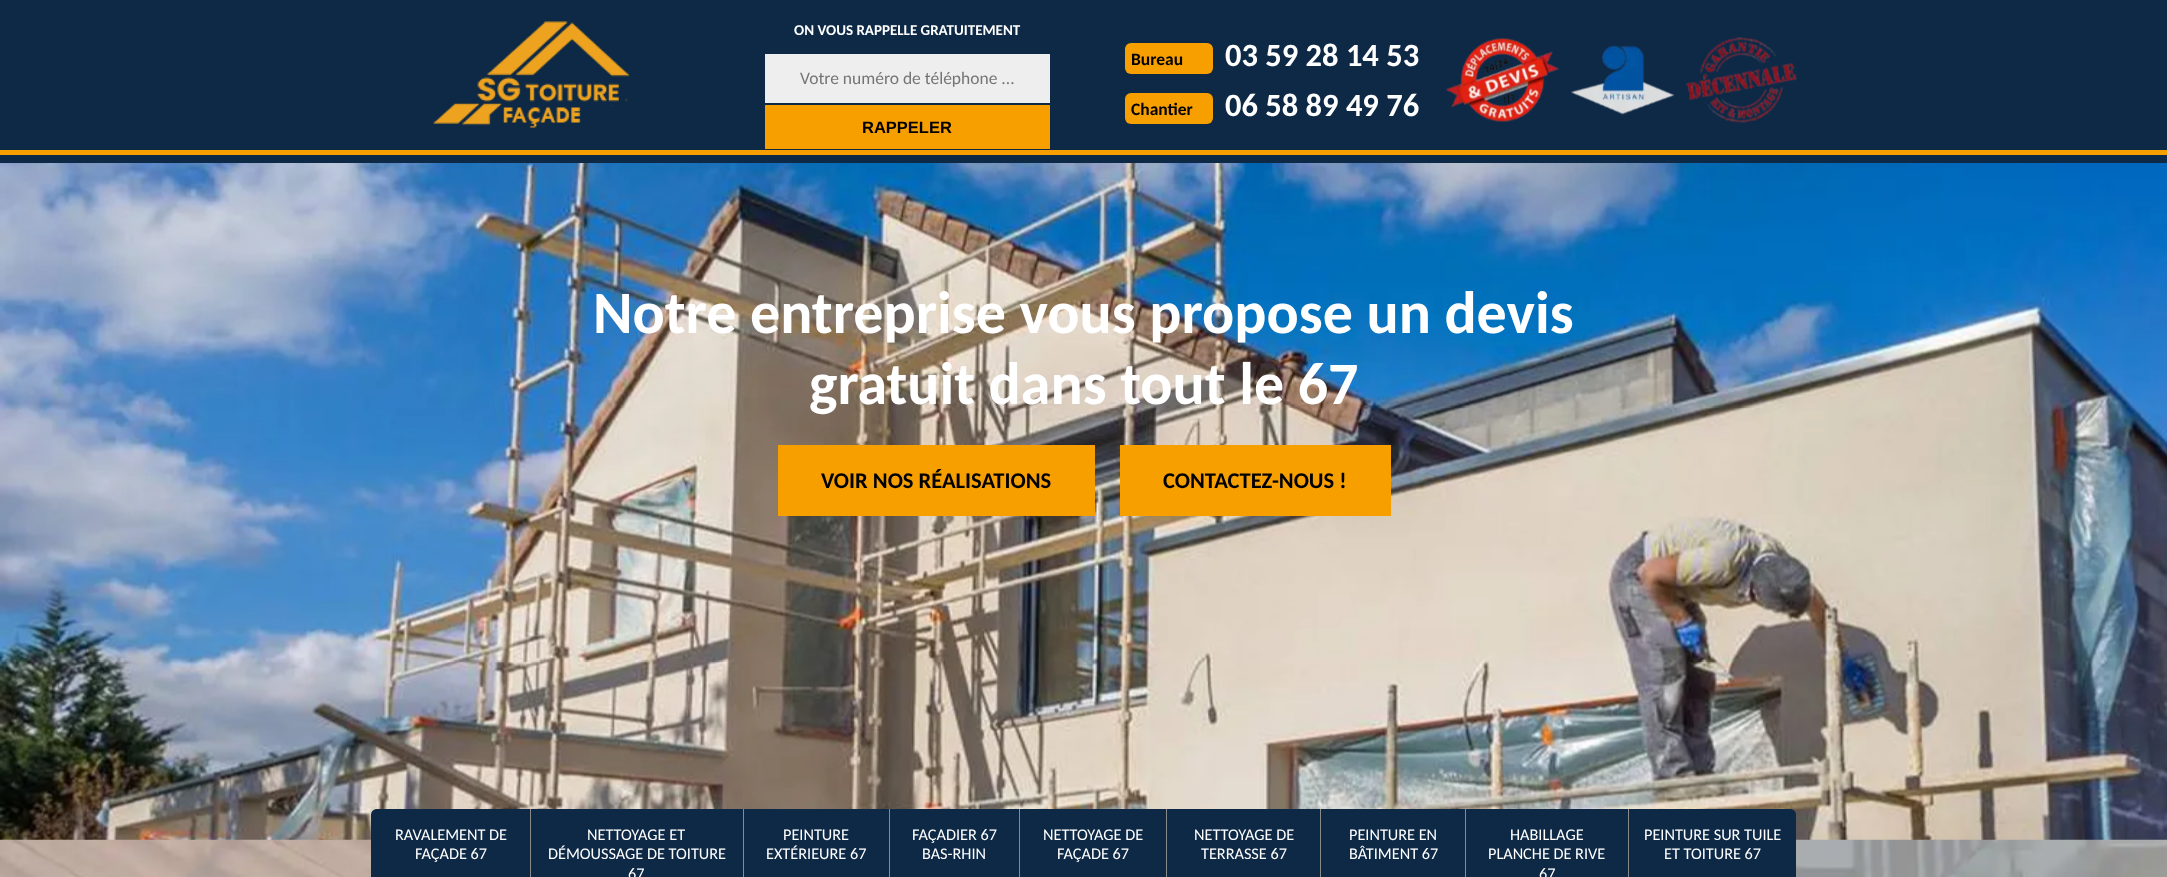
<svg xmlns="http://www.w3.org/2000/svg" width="2167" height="877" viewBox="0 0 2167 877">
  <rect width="100%" height="100%" fill="rgb(255,255,255)"/>
  <image x="0" y="839" width="2167" height="38" href="pic1.png"/>
  <rect x="0" y="0" width="2167" height="163" fill="rgb(14,41,70)"/>
  <image x="433" y="21" width="197" height="107" href="pic2.png"/>
  <text x="794" y="35" font-family="Carlito" font-size="15" font-weight="bold" fill="rgb(255,255,255)">ON VOUS RAPPELLE GRATUITEMENT</text>
  <rect x="765" y="54" width="285" height="49" fill="rgb(238,238,238)"/>
  <text x="800" y="84" font-family="Carlito" font-size="17.5" fill="rgb(117,117,117)">Votre numéro de téléphone ...</text>
  <rect x="765" y="105" width="285" height="44" fill="rgb(248,159,0)"/>
  <text x="862" y="133" font-family="Liberation Sans" font-size="16.5" font-weight="bold" fill="rgb(0,0,0)">RAPPELER</text>
  <rect x="1125" y="43" width="88" height="31" rx="6" fill="rgb(248,159,0)"/>
  <text x="1131" y="65" font-family="Carlito" font-size="17.5" font-weight="bold" fill="rgb(0,0,0)">Bureau</text>
  <text x="1225" y="66" font-family="Carlito" font-size="32.5" font-weight="bold" fill="rgb(255,255,255)">03 59 28 14 53</text>
  <rect x="1125" y="93" width="88" height="31" rx="6" fill="rgb(248,159,0)"/>
  <text x="1131" y="115" font-family="Carlito" font-size="17.5" font-weight="bold" fill="rgb(0,0,0)">Chantier</text>
  <text x="1225" y="116" font-family="Carlito" font-size="32.5" font-weight="bold" fill="rgb(255,255,255)">06 58 89 49 76</text>
  <image x="1446" y="38" width="113" height="84" href="pic3.png"/>
  <image x="1571" y="45" width="104" height="70" href="pic4.png"/>
  <image x="1686" y="37" width="111" height="86" href="pic5.png"/>
  <rect x="0" y="150" width="2167" height="5" fill="rgb(248,159,0)"/>
  <image x="0" y="163" width="2167" height="677" href="pic6.png"/>
  <g font-family="Carlito" font-size="60" font-weight="bold" fill="rgb(255,255,255)">
    <text x="593" y="333">Notre entreprise vous propose un devis</text>
    <text x="809" y="404">gratuit dans tout le 67</text>
  </g>
  <rect x="778" y="445" width="317" height="71" fill="rgb(248,159,0)"/>
  <text x="821" y="488" font-family="Carlito" font-size="22.5" font-weight="bold" fill="rgb(0,0,0)">VOIR NOS RÉALISATIONS</text>
  <rect x="1120" y="445" width="271" height="71" fill="rgb(248,159,0)"/>
  <text x="1163" y="488" font-family="Carlito" font-size="22.5" font-weight="bold" fill="rgb(0,0,0)">CONTACTEZ-NOUS !</text>
  <path d="M377 809H531V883H377C373.5 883 371 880.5 371 877V815C371 811.5 373.5 809 377 809Z" fill="rgb(14,41,70)"/>
  <rect x="530" y="809" width="1" height="68" fill="rgb(139,138,138)"/>
  <g font-family="Carlito" font-size="16.25" fill="rgb(255,255,255)">
    <text x="395" y="840">RAVALEMENT DE</text>
    <text x="415" y="859">FAÇADE 67</text>
  </g>
  <rect x="531" y="809" width="212" height="68" fill="rgb(14,41,70)"/>
  <rect x="743" y="809" width="1" height="68" fill="rgb(139,138,138)"/>
  <g font-family="Carlito" font-size="16.25" fill="rgb(255,255,255)">
    <text x="587" y="840">NETTOYAGE ET</text>
    <text x="548" y="859">DÉMOUSSAGE DE TOITURE</text>
    <text x="628" y="879">67</text>
  </g>
  <rect x="744" y="809" width="145" height="68" fill="rgb(14,41,70)"/>
  <rect x="889" y="809" width="1" height="68" fill="rgb(139,138,138)"/>
  <g font-family="Carlito" font-size="16.25" fill="rgb(255,255,255)">
    <text x="783" y="840">PEINTURE</text>
    <text x="766" y="859">EXTÉRIEURE 67</text>
  </g>
  <rect x="890" y="809" width="129" height="68" fill="rgb(14,41,70)"/>
  <rect x="1019" y="809" width="1" height="68" fill="rgb(139,138,138)"/>
  <g font-family="Carlito" font-size="16.25" fill="rgb(255,255,255)">
    <text x="912" y="840">FAÇADIER 67</text>
    <text x="922" y="859">BAS-RHIN</text>
  </g>
  <rect x="1020" y="809" width="300" height="68" fill="rgb(14,41,70)"/>
  <rect x="1166" y="809" width="1" height="68" fill="rgb(139,138,138)"/>
  <g font-family="Carlito" font-size="16.25" fill="rgb(255,255,255)">
    <text x="1043" y="840">NETTOYAGE DE</text>
    <text x="1057" y="859">FAÇADE 67</text>
  </g>
  <rect x="1320" y="809" width="1" height="68" fill="rgb(139,138,138)"/>
  <g font-family="Carlito" font-size="16.25" fill="rgb(255,255,255)">
    <text x="1194" y="840">NETTOYAGE DE</text>
    <text x="1201" y="859">TERRASSE 67</text>
  </g>
  <rect x="1321" y="809" width="144" height="68" fill="rgb(14,41,70)"/>
  <rect x="1465" y="809" width="1" height="68" fill="rgb(139,138,138)"/>
  <g font-family="Carlito" font-size="16.25" fill="rgb(255,255,255)">
    <text>
      <tspan x="1349" y="840">PEINTURE EN</tspan>
      <tspan x="1349" y="859">BÂTIMENT 67</tspan>
    </text>
  </g>
  <rect x="1466" y="809" width="162" height="68" fill="rgb(14,41,70)"/>
  <rect x="1628" y="809" width="1" height="68" fill="rgb(139,138,138)"/>
  <g font-family="Carlito" font-size="16.25" fill="rgb(255,255,255)">
    <text x="1510" y="840">HABILLAGE</text>
    <text x="1488" y="859">PLANCHE DE RIVE</text>
    <text x="1539" y="879">67</text>
  </g>
  <path d="M1629 809H1790C1793.5 809 1796 811.5 1796 815V877C1796 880.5 1793.5 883 1790 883H1629Z" fill="rgb(14,41,70)"/>
  <g font-family="Carlito" font-size="16.25" fill="rgb(255,255,255)">
    <text x="1644" y="840">PEINTURE SUR TUILE</text>
    <text x="1664" y="859">ET TOITURE 67</text>
  </g>
</svg>
